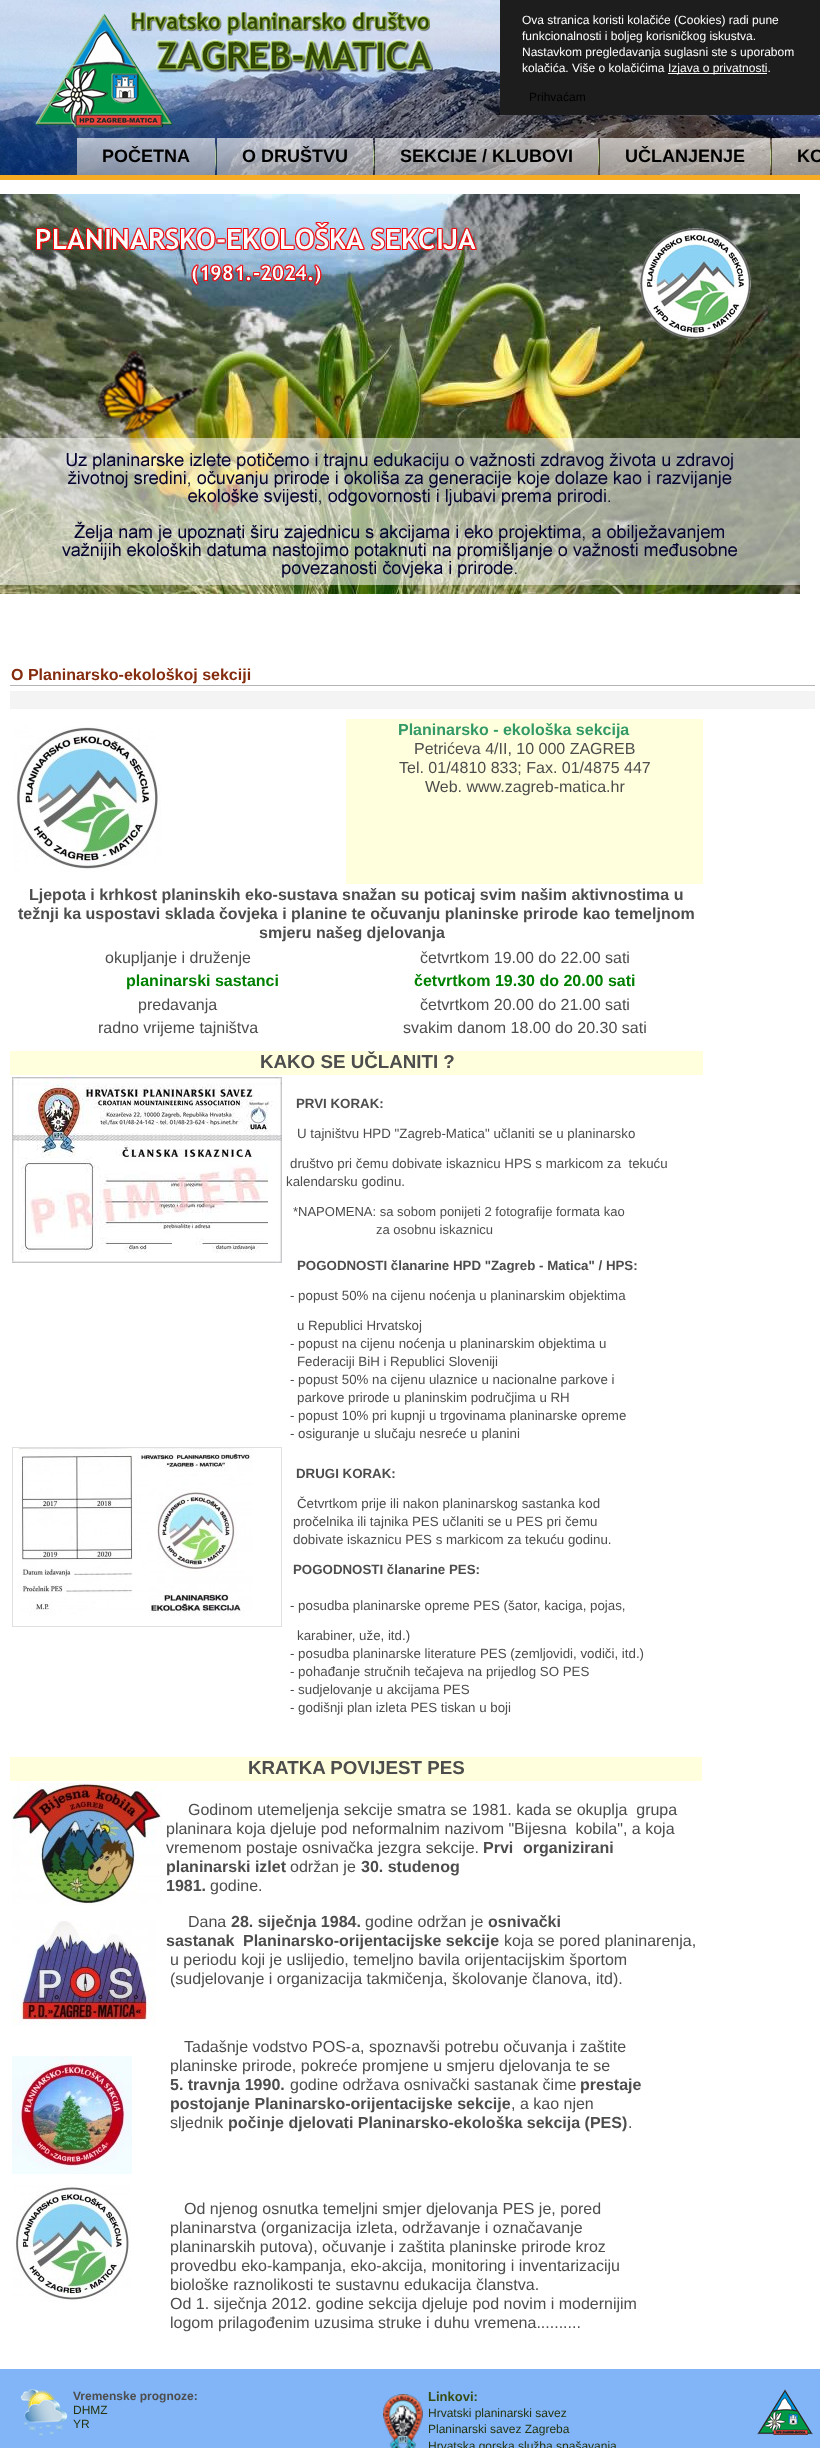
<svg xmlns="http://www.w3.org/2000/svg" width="820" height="2448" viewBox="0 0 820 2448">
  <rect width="100%" height="100%" fill="rgb(255,255,255)"/>
  <image x="0" y="0" width="820" height="175" href="pic1.png"/>
  <rect x="500" y="0" width="320" height="115" fill="rgb(29,29,29)"/>
  <g font-family="Liberation Sans" font-size="12" fill="rgb(255,255,255)">
    <text>
      <tspan x="522" y="24">Ova stranica koristi kolačiće (Cookies) radi pune</tspan>
      <tspan x="522" y="40">funkcionalnosti i boljeg korisničkog iskustva.</tspan>
      <tspan x="522" y="56">Nastavkom pregledavanja suglasni ste s uporabom</tspan>
      <tspan x="522" y="72">kolačića. Više o kolačićima</tspan>
    </text>
  </g>
  <rect x="668" y="73" width="99" height="1" fill="rgb(255,255,255)"/>
  <text x="668" y="72" font-family="Liberation Sans" font-size="12" fill="rgb(255,255,255)">Izjava o privatnosti.</text>
  <text x="529" y="101" font-family="Liberation Sans" font-size="12" fill="rgb(0,0,0)">Prihvaćam</text>
  <image x="35" y="14" width="138" height="114" href="pic2.png"/>
  <image x="131" y="12" width="299" height="24" href="pic3.png"/>
  <image x="156" y="39" width="277" height="34" href="pic4.png"/>
  <rect x="0" y="175" width="820" height="5" fill="rgb(245,172,36)"/>
  <text x="102" y="162" font-family="Liberation Sans" font-size="18" font-weight="bold" fill="rgb(0,0,0)">POČETNA</text>
  <image x="215" y="143" width="2" height="28" href="pic5.png"/>
  <text x="242" y="162" font-family="Liberation Sans" font-size="18" font-weight="bold" fill="rgb(0,0,0)">O DRUŠTVU</text>
  <image x="373" y="143" width="2" height="28" href="pic6.png"/>
  <text x="400" y="162" font-family="Liberation Sans" font-size="18" font-weight="bold" fill="rgb(0,0,0)">SEKCIJE / KLUBOVI</text>
  <image x="598" y="143" width="2" height="28" href="pic7.png"/>
  <text x="625" y="162" font-family="Liberation Sans" font-size="18" font-weight="bold" fill="rgb(0,0,0)">UČLANJENJE</text>
  <image x="770" y="143" width="2" height="28" href="pic8.png"/>
  <text x="797" y="162" font-family="Liberation Sans" font-size="18" font-weight="bold" fill="rgb(0,0,0)">KO</text>
  <image x="0" y="194" width="800" height="400" href="pic9.png"/>
  <rect x="10" y="685" width="805" height="1" fill="rgb(181,181,181)"/>
  <text x="11" y="680" font-family="Liberation Sans" font-size="16" font-weight="bold" fill="rgb(133,44,15)">O Planinarsko-ekološkoj sekciji</text>
  <rect x="10" y="691" width="805" height="18" fill="rgb(244,244,244)"/>
  <image x="13" y="725" width="148" height="147" href="pic10.png"/>
  <rect x="346" y="719" width="357" height="165" fill="rgb(255,255,221)"/>
  <text x="398" y="735" font-family="Liberation Sans" font-size="16" font-weight="bold" fill="rgb(51,153,102)">Planinarsko - ekološka sekcija</text>
  <g font-family="Liberation Sans" font-size="16" fill="rgb(77,77,77)">
    <text x="414" y="754">Petrićeva 4/II, 10 000 ZAGREB</text>
    <text x="399" y="773">Tel. 01/4810 833; Fax. 01/4875 447</text>
    <text x="425" y="792">Web. www.zagreb-matica.hr</text>
  </g>
  <g font-family="Liberation Sans" font-size="16" font-weight="bold" fill="rgb(77,77,77)">
    <text x="29" y="900">Ljepota i krhkost planinskih eko-sustava snažan su poticaj svim našim aktivnostima u</text>
    <text x="18" y="919">težnji ka uspostavi sklada čovjeka i planine te očuvanju planinske prirode kao temeljnom</text>
    <text x="259" y="938">smjeru našeg djelovanja</text>
  </g>
  <g font-family="Liberation Sans" font-size="16" fill="rgb(77,77,77)">
    <text x="105" y="963">okupljanje i druženje</text>
    <text x="420" y="963">četvrtkom 19.00 do 22.00 sati</text>
  </g>
  <g font-family="Liberation Sans" font-size="16" font-weight="bold" fill="rgb(0,128,0)">
    <text x="126" y="986">planinarski sastanci</text>
    <text x="414" y="986">četvrtkom 19.30 do 20.00 sati</text>
  </g>
  <g font-family="Liberation Sans" font-size="16" fill="rgb(77,77,77)">
    <text x="138" y="1010">predavanja</text>
    <text x="420" y="1010">četvrtkom 20.00 do 21.00 sati</text>
    <text x="98" y="1033">radno vrijeme tajništva</text>
    <text x="403" y="1033">svakim danom 18.00 do 20.30 sati</text>
  </g>
  <rect x="10" y="1051" width="693" height="24" fill="rgb(255,255,221)"/>
  <text x="260" y="1068" font-family="Liberation Sans" font-size="18.75" font-weight="bold" fill="rgb(77,77,77)">KAKO SE UČLANITI ?</text>
  <image x="12" y="1077" width="270" height="186" href="pic11.png"/>
  <text x="296" y="1108" font-family="Liberation Sans" font-size="13.3" font-weight="bold" fill="rgb(77,77,77)">PRVI KORAK:</text>
  <g font-family="Liberation Sans" font-size="13.3" fill="rgb(77,77,77)">
    <text x="297" y="1138">U tajništvu HPD "Zagreb-Matica" učlaniti se u planinarsko</text>
    <text x="290" y="1168" xml:space="preserve">društvo pri čemu dobivate iskaznicu HPS s markicom za  tekuću</text>
    <text x="286" y="1186">kalendarsku godinu.</text>
  </g>
  <g font-family="Liberation Sans" font-size="13" fill="rgb(77,77,77)">
    <text x="293" y="1216">*NAPOMENA: sa sobom ponijeti 2 fotografije formata kao</text>
    <text x="376" y="1234">za osobnu iskaznicu</text>
  </g>
  <text x="297" y="1270" font-family="Liberation Sans" font-size="13.3" font-weight="bold" fill="rgb(77,77,77)">POGODNOSTI članarine HPD "Zagreb - Matica" / HPS:</text>
  <g font-family="Liberation Sans" font-size="13.3" fill="rgb(77,77,77)">
    <text x="290" y="1300">- popust 50% na cijenu noćenja u planinarskim objektima</text>
    <text x="297" y="1330">u Republici Hrvatskoj</text>
    <text x="290" y="1348">- popust na cijenu noćenja u planinarskim objektima u</text>
    <text x="297" y="1366">Federaciji BiH i Republici Sloveniji</text>
    <text x="290" y="1384">- popust 50% na cijenu ulaznice u nacionalne parkove i</text>
    <text x="297" y="1402">parkove prirode u planinskim područjima u RH</text>
    <text>
      <tspan x="290" y="1420">- popust 10% pri kupnji u trgovinama planinarske opreme</tspan>
      <tspan x="290" y="1438">- osiguranje u slučaju nesreće u planini</tspan>
    </text>
  </g>
  <rect x="12.5" y="1447.5" width="269" height="179" fill="none" stroke="rgb(225,224,224)"/>
  <image x="17" y="1448" width="236" height="168" href="pic12.png"/>
  <text x="296" y="1478" font-family="Liberation Sans" font-size="13.3" font-weight="bold" fill="rgb(77,77,77)">DRUGI KORAK:</text>
  <g font-family="Liberation Sans" font-size="13.3" fill="rgb(77,77,77)">
    <text x="297" y="1508">Četvrtkom prije ili nakon planinarskog sastanka kod</text>
    <text>
      <tspan x="293" y="1526">pročelnika ili tajnika PES učlaniti se u PES pri čemu</tspan>
      <tspan x="293" y="1544">dobivate iskaznicu PES s markicom za tekuću godinu.</tspan>
    </text>
  </g>
  <text x="293" y="1574" font-family="Liberation Sans" font-size="13.3" font-weight="bold" fill="rgb(77,77,77)">POGODNOSTI članarine PES:</text>
  <g font-family="Liberation Sans" font-size="13.3" fill="rgb(77,77,77)">
    <text x="290" y="1610">- posudba planinarske opreme PES (šator, kaciga, pojas,</text>
    <text x="297" y="1640">karabiner, uže, itd.)</text>
    <text>
      <tspan x="290" y="1658">- posudba planinarske literature PES (zemljovidi, vodiči, itd.)</tspan>
      <tspan x="290" y="1676">- pohađanje stručnih tečajeva na prijedlog SO PES</tspan>
      <tspan x="290" y="1694">- sudjelovanje u akcijama PES</tspan>
      <tspan x="290" y="1712">- godišnji plan izleta PES tiskan u boji</tspan>
    </text>
  </g>
  <rect x="10" y="1757" width="692" height="24" fill="rgb(255,255,221)"/>
  <text x="248" y="1774" font-family="Liberation Sans" font-size="18.75" font-weight="bold" fill="rgb(77,77,77)">KRATKA POVIJEST PES</text>
  <image x="12" y="1783" width="150" height="122" href="pic13.png"/>
  <g font-family="Liberation Sans" font-size="16" fill="rgb(77,77,77)">
    <text x="188" y="1815" xml:space="preserve">Godinom utemeljenja sekcije smatra se 1981. kada se okuplja  grupa</text>
    <text xml:space="preserve"><tspan x="166" y="1834">planinara koja djeluje pod neformalnim nazivom "Bijesna  kobila", a koja</tspan><tspan x="166" y="1853">vremenom postaje osnivačka jezgra sekcije.</tspan></text>
  </g>
  <g font-family="Liberation Sans" font-size="16" font-weight="bold" fill="rgb(77,77,77)">
    <text x="483" y="1853">Prvi</text>
    <text x="523" y="1853">organizirani</text>
    <text x="166" y="1872">planinarski izlet</text>
  </g>
  <text x="290" y="1872" font-family="Liberation Sans" font-size="16" fill="rgb(77,77,77)">održan je</text>
  <g font-family="Liberation Sans" font-size="16" font-weight="bold" fill="rgb(77,77,77)">
    <text x="361" y="1872">30. studenog</text>
    <text x="166" y="1891">1981.</text>
  </g>
  <text x="210" y="1891" font-family="Liberation Sans" font-size="16" fill="rgb(77,77,77)">godine.</text>
  <image x="12" y="1921" width="144" height="105" href="pic14.png"/>
  <text x="188" y="1927" font-family="Liberation Sans" font-size="16" fill="rgb(77,77,77)">Dana</text>
  <text x="231" y="1927" font-family="Liberation Sans" font-size="16" font-weight="bold" fill="rgb(77,77,77)">28. siječnja 1984.</text>
  <text x="365" y="1927" font-family="Liberation Sans" font-size="16" fill="rgb(77,77,77)">godine održan je</text>
  <g font-family="Liberation Sans" font-size="16" font-weight="bold" fill="rgb(77,77,77)">
    <text x="488" y="1927">osnivački</text>
    <text x="166" y="1946">sastanak</text>
    <text x="243" y="1946">Planinarsko-orijentacijske sekcije</text>
  </g>
  <g font-family="Liberation Sans" font-size="16" fill="rgb(77,77,77)">
    <text x="504" y="1946">koja se pored planinarenja,</text>
    <text>
      <tspan x="170" y="1965">u periodu koji je uslijedio, temeljno bavila orijentacijskim športom</tspan>
      <tspan x="170" y="1984">(sudjelovanje i organizacija takmičenja, školovanje članova, itd).</tspan>
    </text>
  </g>
  <image x="12" y="2056" width="120" height="118" href="pic15.png"/>
  <g font-family="Liberation Sans" font-size="16" fill="rgb(77,77,77)">
    <text x="184" y="2052">Tadašnje vodstvo POS-a, spoznavši potrebu očuvanja i zaštite</text>
    <text x="170" y="2071">planinske prirode, pokreće promjene u smjeru djelovanja te se</text>
  </g>
  <text x="170" y="2090" font-family="Liberation Sans" font-size="16" font-weight="bold" fill="rgb(77,77,77)">5. travnja 1990.</text>
  <text x="290" y="2090" font-family="Liberation Sans" font-size="16" fill="rgb(77,77,77)">godine održava osnivački sastanak čime</text>
  <g font-family="Liberation Sans" font-size="16" font-weight="bold" fill="rgb(77,77,77)">
    <text x="580" y="2090">prestaje</text>
    <text x="170" y="2109">postojanje Planinarsko-orijentacijske sekcije</text>
  </g>
  <g font-family="Liberation Sans" font-size="16" fill="rgb(77,77,77)">
    <text x="511" y="2109">, a kao njen</text>
    <text x="170" y="2128">sljednik</text>
  </g>
  <text x="228" y="2128" font-family="Liberation Sans" font-size="16" font-weight="bold" fill="rgb(77,77,77)">počinje djelovati Planinarsko-ekološka sekcija (PES)</text>
  <text x="628" y="2128" font-family="Liberation Sans" font-size="16" fill="rgb(77,77,77)">.</text>
  <image x="13" y="2185" width="118" height="116" href="pic16.png"/>
  <g font-family="Liberation Sans" font-size="16" fill="rgb(77,77,77)">
    <text x="184" y="2214">Od njenog osnutka temeljni smjer djelovanja PES je, pored</text>
    <text>
      <tspan x="170" y="2233">planinarstva (organizacija izleta, održavanje i označavanje</tspan>
      <tspan x="170" y="2252">planinarskih putova), očuvanje i zaštita planinske prirode kroz</tspan>
      <tspan x="170" y="2271">provedbu eko-kampanja, eko-akcija, monitoring i inventarizaciju</tspan>
      <tspan x="170" y="2290">biološke raznolikosti te sustavnu edukacija članstva.</tspan>
      <tspan x="170" y="2309">Od 1. siječnja 2012. godine sekcija djeluje pod novim i modernijim</tspan>
      <tspan x="170" y="2328">logom prilagođenim uzusima struke i duhu vremena..........</tspan>
    </text>
  </g>
  <rect x="0" y="2369" width="820" height="79" fill="rgb(129,181,248)"/>
  <image x="20" y="2389" width="48" height="48" href="pic17.png"/>
  <text x="73" y="2400" font-family="Liberation Sans" font-size="12" font-weight="bold" fill="rgb(77,77,77)">Vremenske prognoze:</text>
  <g font-family="Liberation Sans" font-size="12" fill="rgb(37,52,14)">
    <text>
      <tspan x="73" y="2414">DHMZ</tspan>
      <tspan x="73" y="2428">YR</tspan>
    </text>
  </g>
  <image x="383" y="2394" width="40" height="54" href="pic18.png"/>
  <text x="428" y="2401" font-family="Liberation Sans" font-size="13" font-weight="bold" fill="rgb(54,77,20)">Linkovi:</text>
  <g font-family="Liberation Sans" font-size="12" fill="rgb(37,52,14)">
    <text>
      <tspan x="428" y="2417">Hrvatski planinarski savez</tspan>
      <tspan x="428" y="2433">Planinarski savez Zagreba</tspan>
      <tspan x="428" y="2450">Hrvatska gorska služba spašavanja</tspan>
    </text>
  </g>
  <image x="757" y="2389" width="56" height="46" href="pic19.png"/>
</svg>
